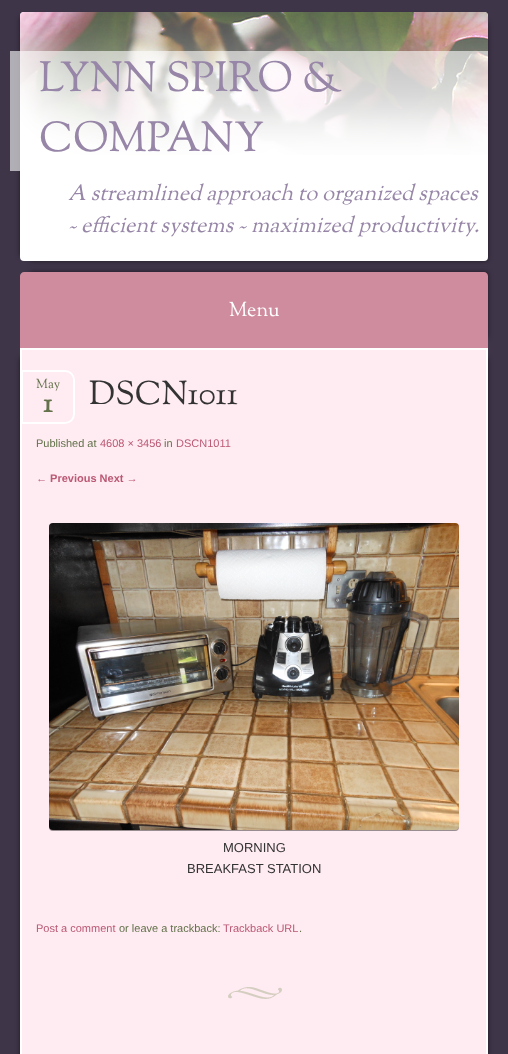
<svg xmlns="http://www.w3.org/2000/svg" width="508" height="1054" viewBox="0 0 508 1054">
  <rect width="100%" height="100%" fill="rgb(63,53,73)"/>
  <rect x="20" y="17" width="458" height="239" fill="rgba(0,0,0,0.5)" filter="blur(2.5px)"/>
  <rect x="30" y="22" width="458" height="239" fill="rgba(0,0,0,0.5)" filter="blur(2.5px)"/>
  <rect x="20" y="12" width="468" height="249" rx="4" fill="rgb(255,255,255)"/>
  <image x="20" y="12" width="468" height="143" href="pic1.png"/>
  <rect x="10" y="51" width="478" height="120" fill="rgba(255,255,255,0.6)"/>
  <g font-family="Sorts Mill Goudy" font-size="42" fill="rgb(151,134,167)">
    <text>
      <tspan x="39" y="91">LYNN SPIRO &amp;</tspan>
      <tspan x="39" y="151">COMPANY</tspan>
    </text>
  </g>
  <g font-family="Sorts Mill Goudy" font-size="22" font-style="italic" fill="rgb(151,134,167)">
    <text>
      <tspan x="68" y="200">A streamlined approach to organized spaces</tspan>
      <tspan x="68" y="232">~ efficient systems ~ maximized productivity.</tspan>
    </text>
  </g>
  <rect x="30" y="272" width="458" height="66" fill="rgba(0,0,0,0.5)" filter="blur(2.5px)"/>
  <path d="M24 272H484C486 272 488 274 488 276V348H20V276C20 274 22 272 24 272Z" fill="rgb(207,140,158)"/>
  <text x="229" y="316" font-family="Sorts Mill Goudy" font-size="20" fill="rgb(255,255,255)">Menu</text>
  <rect x="20" y="358" width="458" height="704" fill="rgba(0,0,0,0.5)" filter="blur(2.5px)"/>
  <rect x="30" y="358" width="458" height="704" fill="rgba(0,0,0,0.5)" filter="blur(2.5px)"/>
  <rect x="21" y="349" width="466" height="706" fill="rgb(255,235,242)" stroke="rgb(255,255,255)" stroke-width="2"/>
  <image x="228" y="987" width="54" height="12" href="pic2.png"/>
  <path d="M22 371H65C70 371 74 375 74 380V414C74 419 70 423 65 423H22Z" fill="rgb(255,235,242)" stroke="rgb(255,255,255)" stroke-width="2"/>
  <text x="36" y="388" font-family="Sorts Mill Goudy" font-size="13" fill="rgb(99,114,75)">May</text>
  <text x="43" y="412" font-family="Sorts Mill Goudy" font-size="28" font-weight="bold" fill="rgb(99,114,75)">1</text>
  <text x="89" y="404" font-family="Sorts Mill Goudy" font-size="33" fill="rgb(51,51,51)">DSCN1011</text>
  <text x="36" y="447" font-family="Liberation Sans" font-size="11" fill="rgb(99,114,75)">Published at</text>
  <text x="100" y="447" font-family="Liberation Sans" font-size="11" fill="rgb(187,89,116)">4608 × 3456</text>
  <text x="164" y="447" font-family="Liberation Sans" font-size="11" fill="rgb(99,114,75)">in</text>
  <text x="176" y="447" font-family="Liberation Sans" font-size="11" fill="rgb(187,89,116)">DSCN1011</text>
  <text x="36" y="482" font-family="Liberation Sans" font-size="11" font-weight="bold" fill="rgb(187,89,116)">← Previous Next →</text>
  <rect x="49" y="524" width="410" height="307" rx="4" fill="rgba(0,0,0,0.4)" filter="blur(0.5px)"/>
  <image x="49" y="523" width="410" height="307" href="pic3.png"/>
  <g font-family="Liberation Sans" font-size="13" fill="rgb(51,51,51)">
    <text x="223" y="852">MORNING</text>
    <text x="187" y="873">BREAKFAST STATION</text>
  </g>
  <text x="36" y="932" font-family="Liberation Sans" font-size="11" fill="rgb(187,89,116)">Post a comment</text>
  <text x="119" y="932" font-family="Liberation Sans" font-size="11" fill="rgb(99,114,75)">or leave a trackback:</text>
  <text x="223" y="932" font-family="Liberation Sans" font-size="11" fill="rgb(187,89,116)">Trackback URL</text>
  <text x="299" y="932" font-family="Liberation Sans" font-size="11" fill="rgb(99,114,75)">.</text>
</svg>
